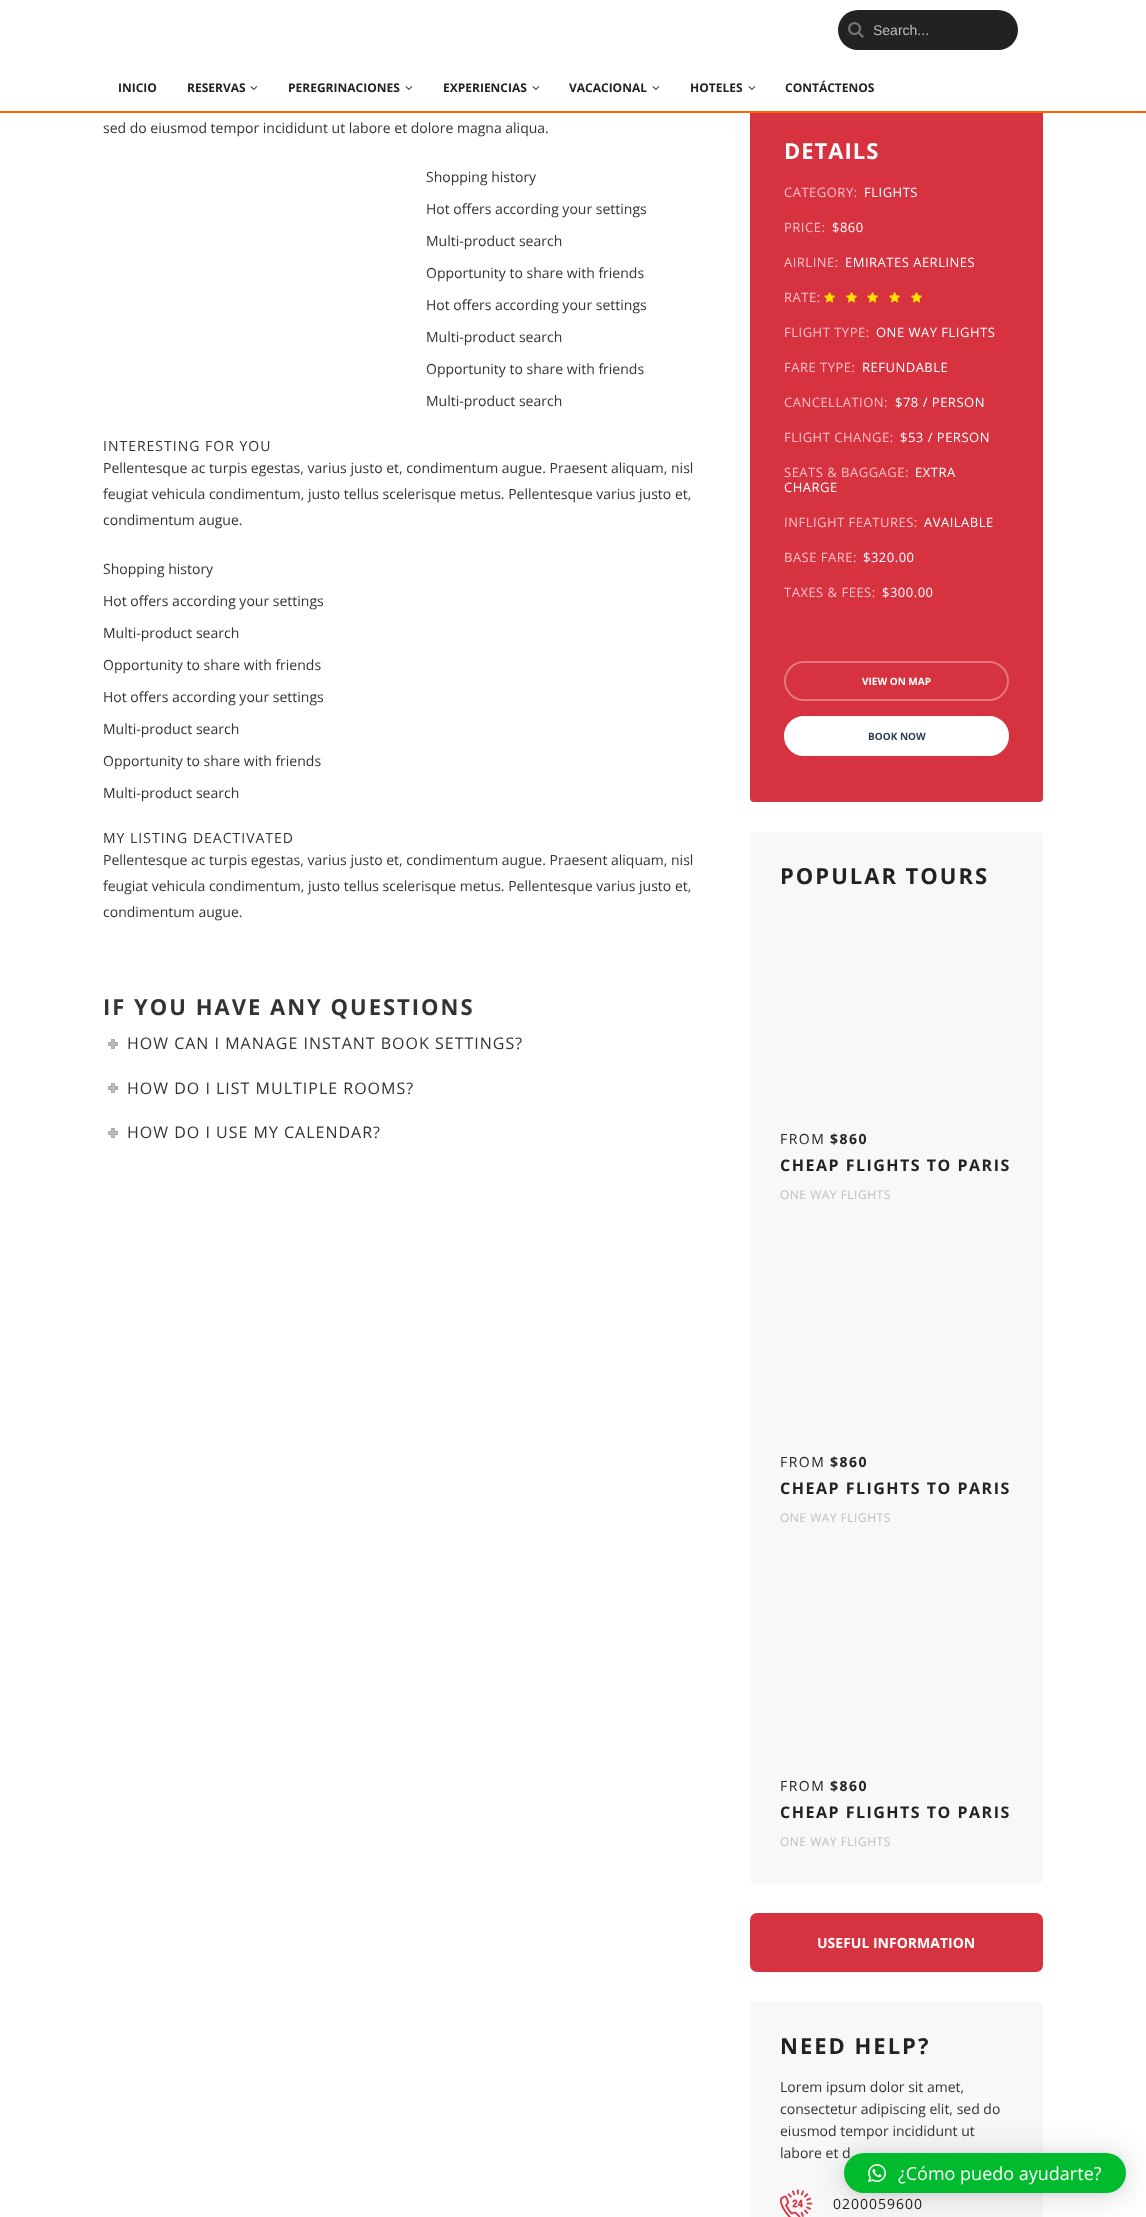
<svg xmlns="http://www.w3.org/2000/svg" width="1146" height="2217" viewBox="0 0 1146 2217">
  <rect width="100%" height="100%" fill="rgb(255,255,255)"/>
  <rect x="750" y="110" width="293" height="692" rx="4" fill="rgb(215,50,64)"/>
  <rect x="751" y="110" width="291" height="1" fill="rgb(255,255,255)"/>
  <rect x="0" y="111" width="1146" height="2" fill="rgb(255,102,0)"/>
  <rect x="838" y="10" width="180" height="40" rx="20" fill="rgb(34,34,34)"/>
  <image x="848" y="22" width="16" height="16" href="pic1.png"/>
  <text x="873" y="35" font-family="Liberation Sans" font-size="14" fill="rgb(190,190,190)">Search...</text>
  <g font-family="Open Sans" font-size="12" font-weight="bold" fill="rgb(34,34,34)">
    <text x="118" y="92">INICIO</text>
    <text x="187" y="92">RESERVAS</text>
  </g>
  <image x="250" y="86" width="8" height="4" href="pic2.png"/>
  <text x="288" y="92" font-family="Open Sans" font-size="12" font-weight="bold" fill="rgb(34,34,34)">PEREGRINACIONES</text>
  <image x="405" y="86" width="8" height="4" href="pic2.png"/>
  <text x="443" y="92" font-family="Open Sans" font-size="12" font-weight="bold" fill="rgb(34,34,34)">EXPERIENCIAS</text>
  <image x="532" y="86" width="8" height="4" href="pic2.png"/>
  <text x="569" y="92" font-family="Open Sans" font-size="12" font-weight="bold" fill="rgb(34,34,34)">VACACIONAL</text>
  <image x="652" y="86" width="8" height="4" href="pic2.png"/>
  <text x="690" y="92" font-family="Open Sans" font-size="12" font-weight="bold" fill="rgb(34,34,34)">HOTELES</text>
  <image x="748" y="86" width="8" height="4" href="pic2.png"/>
  <text x="785" y="92" font-family="Open Sans" font-size="12" font-weight="bold" fill="rgb(34,34,34)">CONTÁCTENOS</text>
  <g font-family="Open Sans" font-size="14" fill="rgb(51,51,51)">
    <text x="103" y="133">sed do eiusmod tempor incididunt ut labore et dolore magna aliqua.</text>
    <text x="426" y="182">Shopping history</text>
    <text x="426" y="214">Hot offers according your settings</text>
    <text x="426" y="246">Multi-product search</text>
    <text x="426" y="278">Opportunity to share with friends</text>
    <text x="426" y="310">Hot offers according your settings</text>
    <text x="426" y="342">Multi-product search</text>
    <text x="426" y="374">Opportunity to share with friends</text>
    <text x="426" y="406">Multi-product search</text>
  </g>
  <text x="103" y="451" font-family="Open Sans" font-size="14" letter-spacing="1" fill="rgb(51,51,51)">INTERESTING FOR YOU</text>
  <g font-family="Open Sans" font-size="14" fill="rgb(51,51,51)">
    <text>
      <tspan x="103" y="473">Pellentesque ac turpis egestas, varius justo et, condimentum augue. Praesent aliquam, nisl</tspan>
      <tspan x="103" y="499">feugiat vehicula condimentum, justo tellus scelerisque metus. Pellentesque varius justo et,</tspan>
      <tspan x="103" y="525">condimentum augue.</tspan>
    </text>
    <text x="103" y="574">Shopping history</text>
    <text x="103" y="606">Hot offers according your settings</text>
    <text x="103" y="638">Multi-product search</text>
    <text x="103" y="670">Opportunity to share with friends</text>
    <text x="103" y="702">Hot offers according your settings</text>
    <text x="103" y="734">Multi-product search</text>
    <text x="103" y="766">Opportunity to share with friends</text>
    <text x="103" y="798">Multi-product search</text>
  </g>
  <text x="103" y="843" font-family="Open Sans" font-size="14" letter-spacing="1" fill="rgb(51,51,51)">MY LISTING DEACTIVATED</text>
  <g font-family="Open Sans" font-size="14" fill="rgb(51,51,51)">
    <text>
      <tspan x="103" y="865">Pellentesque ac turpis egestas, varius justo et, condimentum augue. Praesent aliquam, nisl</tspan>
      <tspan x="103" y="891">feugiat vehicula condimentum, justo tellus scelerisque metus. Pellentesque varius justo et,</tspan>
      <tspan x="103" y="917">condimentum augue.</tspan>
    </text>
  </g>
  <text x="103" y="1015" font-family="Open Sans" font-size="22" font-weight="bold" letter-spacing="2" fill="rgb(51,51,51)">IF YOU HAVE ANY QUESTIONS</text>
  <rect x="108.5" y="1042.5" width="9" height="3" fill="none" stroke="rgb(172,172,172)"/>
  <rect x="111.5" y="1039.5" width="3" height="9" fill="rgb(186,186,186)" stroke="rgb(172,172,172)"/>
  <rect x="109" y="1043" width="8" height="2" fill="rgb(186,186,186)"/>
  <text x="127" y="1049" font-family="Open Sans" font-size="16" letter-spacing="1" fill="rgb(51,51,51)">HOW CAN I MANAGE INSTANT BOOK SETTINGS?</text>
  <rect x="108.5" y="1086.5" width="9" height="3" fill="none" stroke="rgb(172,172,172)"/>
  <rect x="111.5" y="1083.5" width="3" height="9" fill="rgb(186,186,186)" stroke="rgb(172,172,172)"/>
  <rect x="109" y="1087" width="8" height="2" fill="rgb(186,186,186)"/>
  <text x="127" y="1094" font-family="Open Sans" font-size="16" letter-spacing="1" fill="rgb(51,51,51)">HOW DO I LIST MULTIPLE ROOMS?</text>
  <rect x="108.5" y="1131.5" width="9" height="3" fill="none" stroke="rgb(172,172,172)"/>
  <rect x="111.5" y="1128.5" width="3" height="9" fill="rgb(186,186,186)" stroke="rgb(172,172,172)"/>
  <rect x="109" y="1132" width="8" height="2" fill="rgb(186,186,186)"/>
  <text x="127" y="1138" font-family="Open Sans" font-size="16" letter-spacing="1" fill="rgb(51,51,51)">HOW DO I USE MY CALENDAR?</text>
  <text x="784" y="159" font-family="Open Sans" font-size="22" font-weight="bold" letter-spacing="1" fill="rgb(255,255,255)">DETAILS</text>
  <text x="784" y="197" font-family="Open Sans" font-size="13" letter-spacing="0.5" fill="rgb(255,192,197)">CATEGORY:</text>
  <text x="864" y="197" font-family="Open Sans" font-size="13" letter-spacing="0.5" fill="rgb(255,255,255)">FLIGHTS</text>
  <text x="784" y="232" font-family="Open Sans" font-size="13" letter-spacing="0.5" fill="rgb(255,192,197)">PRICE:</text>
  <text x="832" y="232" font-family="Open Sans" font-size="13" letter-spacing="0.5" fill="rgb(255,255,255)">$860</text>
  <text x="784" y="267" font-family="Open Sans" font-size="13" letter-spacing="0.5" fill="rgb(255,192,197)">AIRLINE:</text>
  <text x="845" y="267" font-family="Open Sans" font-size="13" letter-spacing="0.5" fill="rgb(255,255,255)">EMIRATES AERLINES</text>
  <text x="784" y="302" font-family="Open Sans" font-size="13" letter-spacing="0.5" fill="rgb(255,192,197)">RATE:</text>
  <image x="824" y="292" width="12" height="11" href="pic3.png"/>
  <image x="846" y="292" width="12" height="11" href="pic3.png"/>
  <image x="867" y="292" width="12" height="11" href="pic3.png"/>
  <image x="889" y="292" width="12" height="11" href="pic3.png"/>
  <image x="911" y="292" width="12" height="11" href="pic3.png"/>
  <text x="784" y="337" font-family="Open Sans" font-size="13" letter-spacing="0.5" fill="rgb(255,192,197)">FLIGHT TYPE:</text>
  <text x="876" y="337" font-family="Open Sans" font-size="13" letter-spacing="0.5" fill="rgb(255,255,255)">ONE WAY FLIGHTS</text>
  <text x="784" y="372" font-family="Open Sans" font-size="13" letter-spacing="0.5" fill="rgb(255,192,197)">FARE TYPE:</text>
  <text x="862" y="372" font-family="Open Sans" font-size="13" letter-spacing="0.5" fill="rgb(255,255,255)">REFUNDABLE</text>
  <text x="784" y="407" font-family="Open Sans" font-size="13" letter-spacing="0.5" fill="rgb(255,192,197)">CANCELLATION:</text>
  <text x="895" y="407" font-family="Open Sans" font-size="13" letter-spacing="0.5" fill="rgb(255,255,255)">$78 / PERSON</text>
  <text x="784" y="442" font-family="Open Sans" font-size="13" letter-spacing="0.5" fill="rgb(255,192,197)">FLIGHT CHANGE:</text>
  <text x="900" y="442" font-family="Open Sans" font-size="13" letter-spacing="0.5" fill="rgb(255,255,255)">$53 / PERSON</text>
  <text x="784" y="477" font-family="Open Sans" font-size="13" letter-spacing="0.5" fill="rgb(255,192,197)">SEATS &amp; BAGGAGE:</text>
  <g font-family="Open Sans" font-size="13" letter-spacing="0.5" fill="rgb(255,255,255)">
    <text x="915" y="477">EXTRA</text>
    <text x="784" y="492">CHARGE</text>
  </g>
  <text x="784" y="527" font-family="Open Sans" font-size="13" letter-spacing="0.5" fill="rgb(255,192,197)">INFLIGHT FEATURES:</text>
  <text x="924" y="527" font-family="Open Sans" font-size="13" letter-spacing="0.5" fill="rgb(255,255,255)">AVAILABLE</text>
  <text x="784" y="562" font-family="Open Sans" font-size="13" letter-spacing="0.5" fill="rgb(255,192,197)">BASE FARE:</text>
  <text x="863" y="562" font-family="Open Sans" font-size="13" letter-spacing="0.5" fill="rgb(255,255,255)">$320.00</text>
  <text x="784" y="597" font-family="Open Sans" font-size="13" letter-spacing="0.5" fill="rgb(255,192,197)">TAXES &amp; FEES:</text>
  <text x="882" y="597" font-family="Open Sans" font-size="13" letter-spacing="0.5" fill="rgb(255,255,255)">$300.00</text>
  <rect x="785" y="662" width="223" height="38" rx="19" fill="none" stroke="rgb(228,118,127)" stroke-width="2"/>
  <text x="862" y="685" font-family="Open Sans" font-size="10" font-weight="bold" fill="rgb(255,255,255)">VIEW ON MAP</text>
  <rect x="785" y="717" width="223" height="38" rx="19" fill="rgb(255,255,255)" stroke="rgb(255,255,255)" stroke-width="2"/>
  <text x="868" y="740" font-family="Open Sans" font-size="10" font-weight="bold" fill="rgb(45,62,80)">BOOK NOW</text>
  <rect x="750" y="832" width="293" height="1051" rx="4" fill="rgb(248,248,248)"/>
  <text x="780" y="884" font-family="Open Sans" font-size="22" font-weight="bold" letter-spacing="2" fill="rgb(34,34,34)">POPULAR TOURS</text>
  <text x="780" y="1144" font-family="Open Sans" font-size="14" letter-spacing="1.5" fill="rgb(34,34,34)">FROM</text>
  <text x="830" y="1144" font-family="Open Sans" font-size="14" font-weight="bold" letter-spacing="1.5" fill="rgb(34,34,34)">$860</text>
  <text x="780" y="1171" font-family="Open Sans" font-size="16" font-weight="bold" letter-spacing="1.5" fill="rgb(34,34,34)">CHEAP FLIGHTS TO PARIS</text>
  <text x="780" y="1199" font-family="Open Sans" font-size="12" letter-spacing="0.5" fill="rgb(190,190,190)">ONE WAY FLIGHTS</text>
  <text x="780" y="1467" font-family="Open Sans" font-size="14" letter-spacing="1.5" fill="rgb(34,34,34)">FROM</text>
  <text x="830" y="1467" font-family="Open Sans" font-size="14" font-weight="bold" letter-spacing="1.5" fill="rgb(34,34,34)">$860</text>
  <text x="780" y="1494" font-family="Open Sans" font-size="16" font-weight="bold" letter-spacing="1.5" fill="rgb(34,34,34)">CHEAP FLIGHTS TO PARIS</text>
  <text x="780" y="1522" font-family="Open Sans" font-size="12" letter-spacing="0.5" fill="rgb(190,190,190)">ONE WAY FLIGHTS</text>
  <text x="780" y="1791" font-family="Open Sans" font-size="14" letter-spacing="1.5" fill="rgb(34,34,34)">FROM</text>
  <text x="830" y="1791" font-family="Open Sans" font-size="14" font-weight="bold" letter-spacing="1.5" fill="rgb(34,34,34)">$860</text>
  <text x="780" y="1818" font-family="Open Sans" font-size="16" font-weight="bold" letter-spacing="1.5" fill="rgb(34,34,34)">CHEAP FLIGHTS TO PARIS</text>
  <text x="780" y="1846" font-family="Open Sans" font-size="12" letter-spacing="0.5" fill="rgb(190,190,190)">ONE WAY FLIGHTS</text>
  <rect x="750" y="1913" width="293" height="59" rx="7" fill="rgb(215,50,64)"/>
  <text x="817" y="1948" font-family="Open Sans" font-size="14" font-weight="bold" fill="rgb(255,255,255)">USEFUL INFORMATION</text>
  <rect x="750" y="2002" width="293" height="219" rx="4" fill="rgb(248,248,248)"/>
  <text x="780" y="2054" font-family="Open Sans" font-size="22" font-weight="bold" letter-spacing="2" fill="rgb(34,34,34)">NEED HELP?</text>
  <g font-family="Open Sans" font-size="14" fill="rgb(51,51,51)">
    <text>
      <tspan x="780" y="2092">Lorem ipsum dolor sit amet,</tspan>
      <tspan x="780" y="2114">consectetur adipiscing elit, sed do</tspan>
      <tspan x="780" y="2136">eiusmod tempor incididunt ut</tspan>
      <tspan x="780" y="2158">labore et d</tspan>
    </text>
  </g>
  <image x="780" y="2189" width="33" height="28" href="pic4.png"/>
  <text x="833" y="2209" font-family="Open Sans" font-size="14" letter-spacing="1" fill="rgb(34,34,34)">0200059600</text>
  <rect x="844" y="2155" width="282" height="40" rx="20" fill="rgba(0,0,0,0.16)" filter="blur(16px)"/>
  <rect x="844" y="2154" width="282" height="40" rx="20" fill="rgba(0,0,0,0.06)" filter="blur(3px)"/>
  <rect x="844" y="2153" width="282" height="40" rx="20" fill="rgb(0,187,45)"/>
  <image x="868" y="2164" width="18" height="19" href="pic5.png"/>
  <text x="898" y="2180" font-family="Open Sans" font-size="18" fill="rgb(255,255,255)">¿Cómo puedo ayudarte?</text>
</svg>
